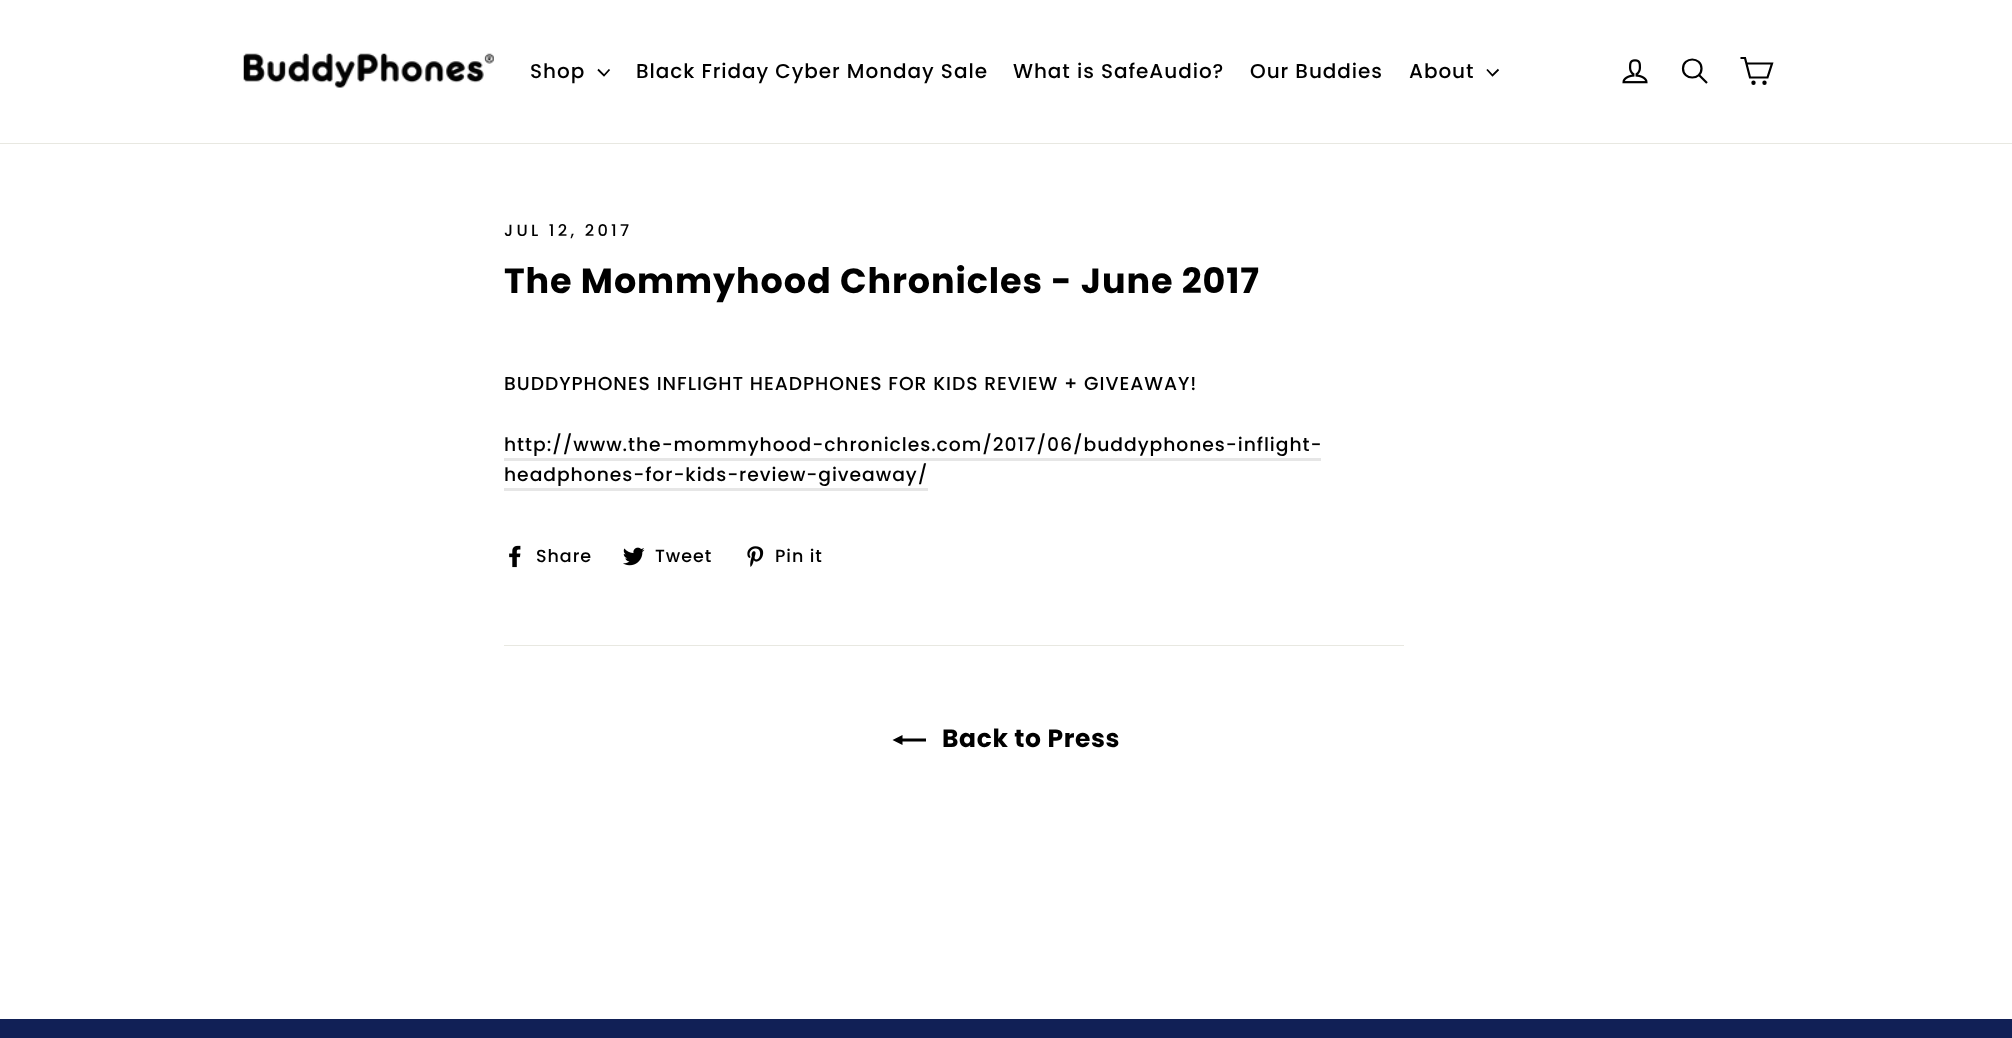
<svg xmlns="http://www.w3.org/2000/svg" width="2012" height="1038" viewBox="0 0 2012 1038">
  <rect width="100%" height="100%" fill="rgb(255,255,255)"/>
  <rect x="0" y="143" width="2012" height="1" fill="rgb(232,232,225)"/>
  <image x="243" y="53" width="251" height="35" href="pic1.png"/>
  <text x="530" y="78" font-family="Poppins" font-size="20" font-weight="500" letter-spacing="0.95" fill="rgb(0,0,0)">Shop</text>
  <path d="M598 69.5L604 75.5L609.5 69.5" fill="none" stroke="rgb(0,0,0)" stroke-width="1.8"/>
  <g font-family="Poppins" font-size="20" font-weight="500" letter-spacing="0.95" fill="rgb(0,0,0)">
    <text x="636" y="78">Black Friday Cyber Monday Sale</text>
    <text x="1013" y="78">What is SafeAudio?</text>
    <text x="1250" y="78">Our Buddies</text>
    <text x="1409" y="78">About</text>
  </g>
  <path d="M1487 69.5L1492.5 75.5L1498.5 69.5" fill="none" stroke="rgb(0,0,0)" stroke-width="1.8"/>
  <image x="1622" y="59" width="26" height="25" href="pic2.png"/>
  <path d="M1701.5 68.5C1701.5 80.5 1683 80.5 1683 68.5C1683 56.5 1701.5 56.5 1701.5 68.5ZM1707 83L1699 75" fill="none" stroke="rgb(0,0,0)" stroke-width="2.2"/>
  <path d="M1746.5 63.5H1772L1767.5 77.5H1750L1745 58H1740.5" fill="none" stroke="rgb(0,0,0)" stroke-width="2.2"/>
  <circle cx="1753.5" cy="82.7" r="1.1" fill="none" stroke="rgb(0,0,0)" stroke-width="2.2"/>
  <circle cx="1764.5" cy="82.7" r="1.1" fill="none" stroke="rgb(0,0,0)" stroke-width="2.2"/>
  <text x="504" y="236" font-family="Poppins" font-size="16.25" font-weight="500" letter-spacing="3.25" fill="rgb(0,0,0)">JUL 12, 2017</text>
  <text x="504" y="293" font-family="Poppins" font-size="35" font-weight="bold" letter-spacing="0.9" fill="rgb(0,0,0)">The Mommyhood Chronicles - June 2017</text>
  <g font-family="Poppins" font-size="18.75" font-weight="500" letter-spacing="0.95" fill="rgb(0,0,0)">
    <text x="504" y="390">BUDDYPHONES INFLIGHT HEADPHONES FOR KIDS REVIEW + GIVEAWAY!</text>
    <text x="504" y="451">http://www.the-mommyhood-chronicles.com/2017/06/buddyphones-inflight-</text>
  </g>
  <rect x="504" y="458" width="817" height="3" fill="rgb(230,230,230)"/>
  <text x="504" y="481" font-family="Poppins" font-size="18.75" font-weight="500" letter-spacing="0.95" fill="rgb(0,0,0)">headphones-for-kids-review-giveaway/</text>
  <rect x="504" y="488" width="424" height="3" fill="rgb(230,230,230)"/>
  <image x="509" y="545" width="12" height="23" href="pic3.png"/>
  <text x="536" y="562" font-family="Poppins" font-size="17.5" font-weight="500" letter-spacing="0.95" fill="rgb(0,0,0)">Share</text>
  <image x="623" y="547" width="22" height="19" href="pic4.png"/>
  <text x="655" y="562" font-family="Poppins" font-size="17.5" font-weight="500" letter-spacing="0.95" fill="rgb(0,0,0)">Tweet</text>
  <image x="747" y="546" width="17" height="21" href="pic5.png"/>
  <text x="775" y="562" font-family="Poppins" font-size="17.5" font-weight="500" letter-spacing="0.95" fill="rgb(0,0,0)">Pin it</text>
  <rect x="504" y="645" width="900" height="1" fill="rgb(232,232,225)"/>
  <path d="M926 738.5V741.5H902.5V745L892.5 740L902.5 735V738.5Z" fill="rgb(0,0,0)"/>
  <text x="942" y="747" font-family="Poppins" font-size="25" font-weight="bold" letter-spacing="0.6" fill="rgb(0,0,0)">Back to Press</text>
  <rect x="0" y="1019" width="2012" height="19" fill="rgb(17,32,86)"/>
</svg>
